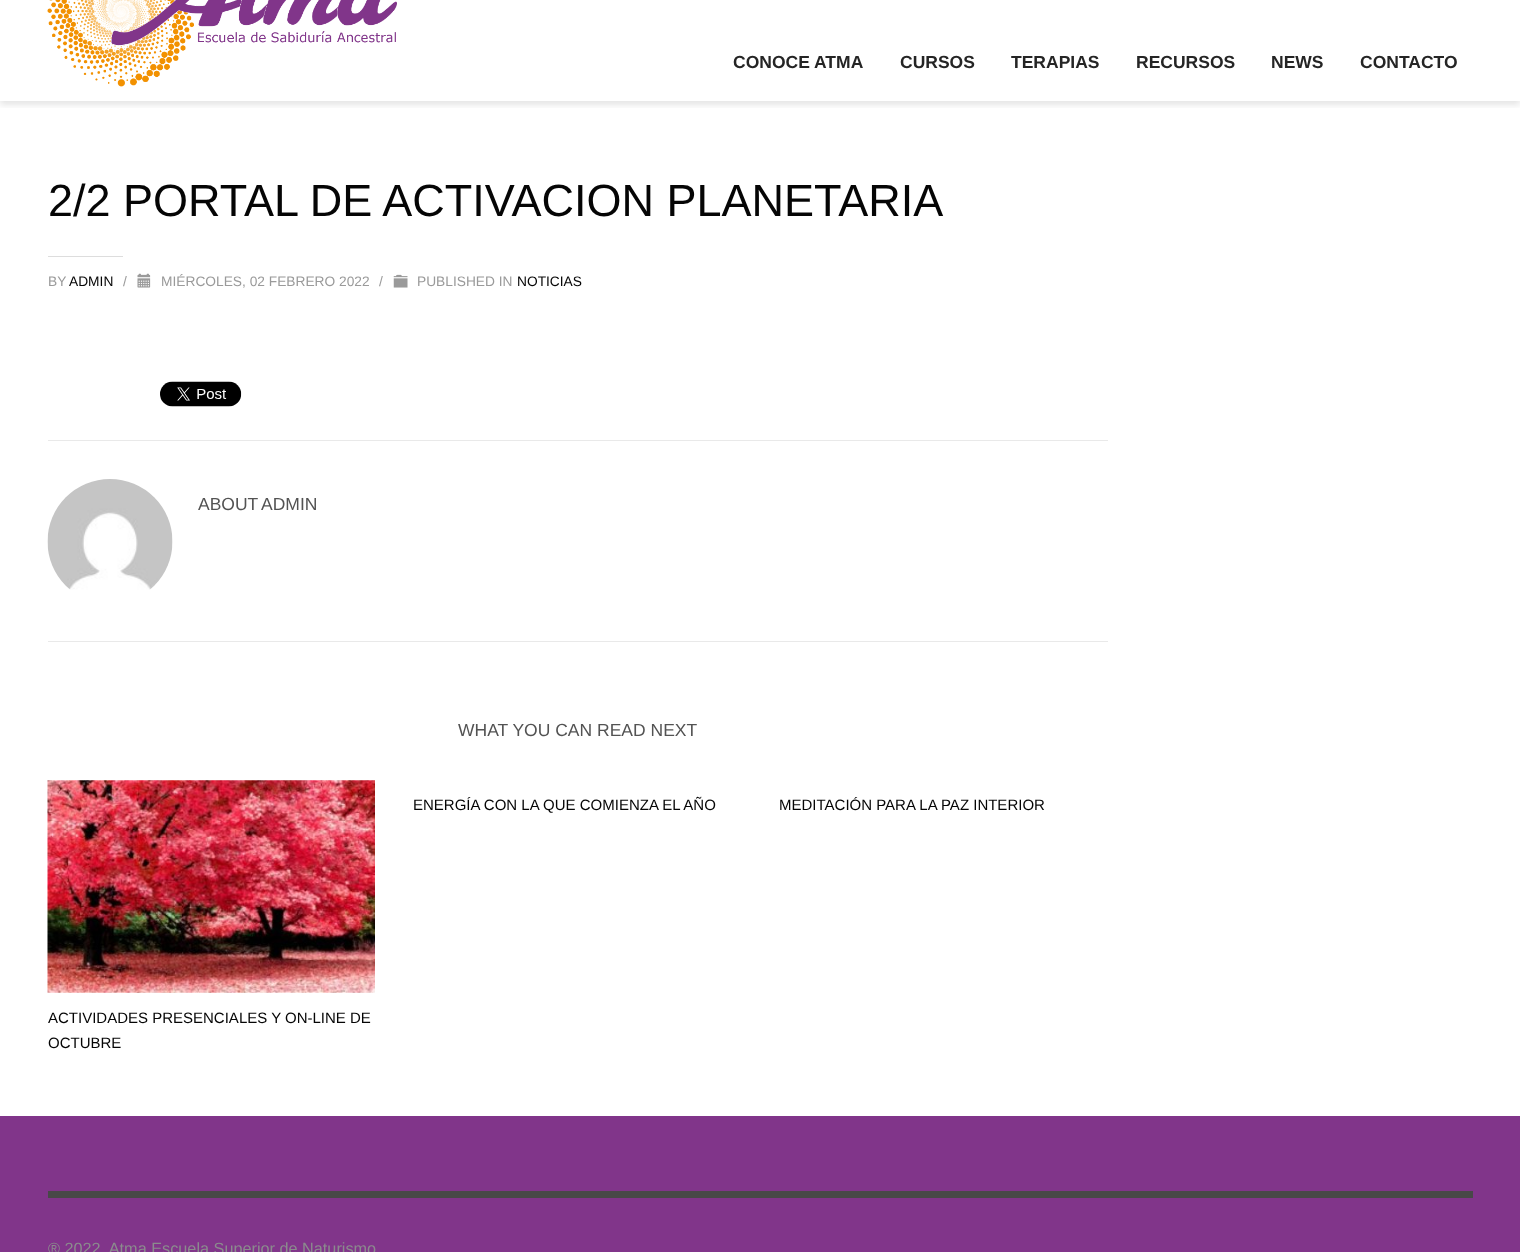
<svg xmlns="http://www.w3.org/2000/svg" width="1520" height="1252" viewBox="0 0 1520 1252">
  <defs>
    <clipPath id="clip1"><rect x="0" y="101" width="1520" height="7"/></clipPath>
  </defs>
  <rect width="100%" height="100%" fill="rgb(255,255,255)"/>
  <g clip-path="url(#clip1)">
    <rect x="0" y="-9" width="1520" height="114" fill="rgba(0,0,0,0.1)" filter="blur(3px)"/>
  </g>
  <image x="47" y="0" width="350" height="87" href="pic1.png"/>
  <g font-family="Liberation Sans" font-size="17.5" font-weight="bold" fill="rgb(37,37,37)">
    <text x="733" y="68">CONOCE ATMA</text>
    <text x="900" y="68">CURSOS</text>
    <text x="1011" y="68">TERAPIAS</text>
    <text x="1136" y="68">RECURSOS</text>
    <text x="1271" y="68">NEWS</text>
    <text x="1360" y="68">CONTACTO</text>
  </g>
  <text x="48" y="216" font-family="Liberation Sans" font-size="45" fill="rgb(5,5,5)">2/2 PORTAL DE ACTIVACION PLANETARIA</text>
  <rect x="48" y="256" width="75" height="1" fill="rgb(221,221,221)"/>
  <text x="48" y="286" font-family="Liberation Sans" font-size="13.75" fill="rgb(154,154,154)">BY</text>
  <text x="69" y="286" font-family="Liberation Sans" font-size="13.75" fill="rgb(5,5,5)">ADMIN</text>
  <text x="123" y="286" font-family="Liberation Sans" font-size="13.75" fill="rgb(154,154,154)">/</text>
  <image x="137" y="273" width="14" height="15" href="pic2.png"/>
  <g font-family="Liberation Sans" font-size="13.75" fill="rgb(154,154,154)">
    <text x="161" y="286">MIÉRCOLES, 02 FEBRERO 2022</text>
    <text x="379" y="286">/</text>
  </g>
  <image x="393" y="274" width="15" height="14" href="pic3.png"/>
  <text x="417" y="286" font-family="Liberation Sans" font-size="13.75" fill="rgb(154,154,154)">PUBLISHED IN</text>
  <text x="517" y="286" font-family="Liberation Sans" font-size="13.75" fill="rgb(5,5,5)">NOTICIAS</text>
  <image x="160" y="381" width="82" height="26" href="pic4.png"/>
  <rect x="48" y="440" width="1060" height="1" fill="rgb(233,233,233)"/>
  <rect x="48" y="641" width="1060" height="1" fill="rgb(233,233,233)"/>
  <image x="47" y="479" width="126" height="111" href="pic5.png"/>
  <g font-family="Liberation Sans" font-size="17.5" fill="rgb(83,83,83)">
    <text x="198" y="510">ABOUT</text>
    <text x="261" y="510">ADMIN</text>
    <text x="458" y="736">WHAT YOU CAN READ NEXT</text>
  </g>
  <g font-family="Liberation Sans" font-size="15" fill="rgb(5,5,5)">
    <text x="413" y="810">ENERGÍA CON LA QUE COMIENZA EL AÑO</text>
    <text x="779" y="810">MEDITACIÓN PARA LA PAZ INTERIOR</text>
  </g>
  <image x="47" y="780" width="328" height="213" href="pic6.png"/>
  <g font-family="Liberation Sans" font-size="15" fill="rgb(5,5,5)">
    <text>
      <tspan x="48" y="1023">ACTIVIDADES PRESENCIALES Y ON-LINE DE</tspan>
      <tspan x="48" y="1048">OCTUBRE</tspan>
    </text>
  </g>
  <rect x="0" y="1116" width="1520" height="136" fill="rgb(129,53,138)"/>
  <rect x="48" y="1191" width="1425" height="7" fill="rgb(72,72,72)"/>
  <text x="48" y="1254" font-family="Liberation Sans" font-size="16.25" fill="rgb(139,140,141)">® 2022. Atma Escuela Superior de Naturismo</text>
</svg>
